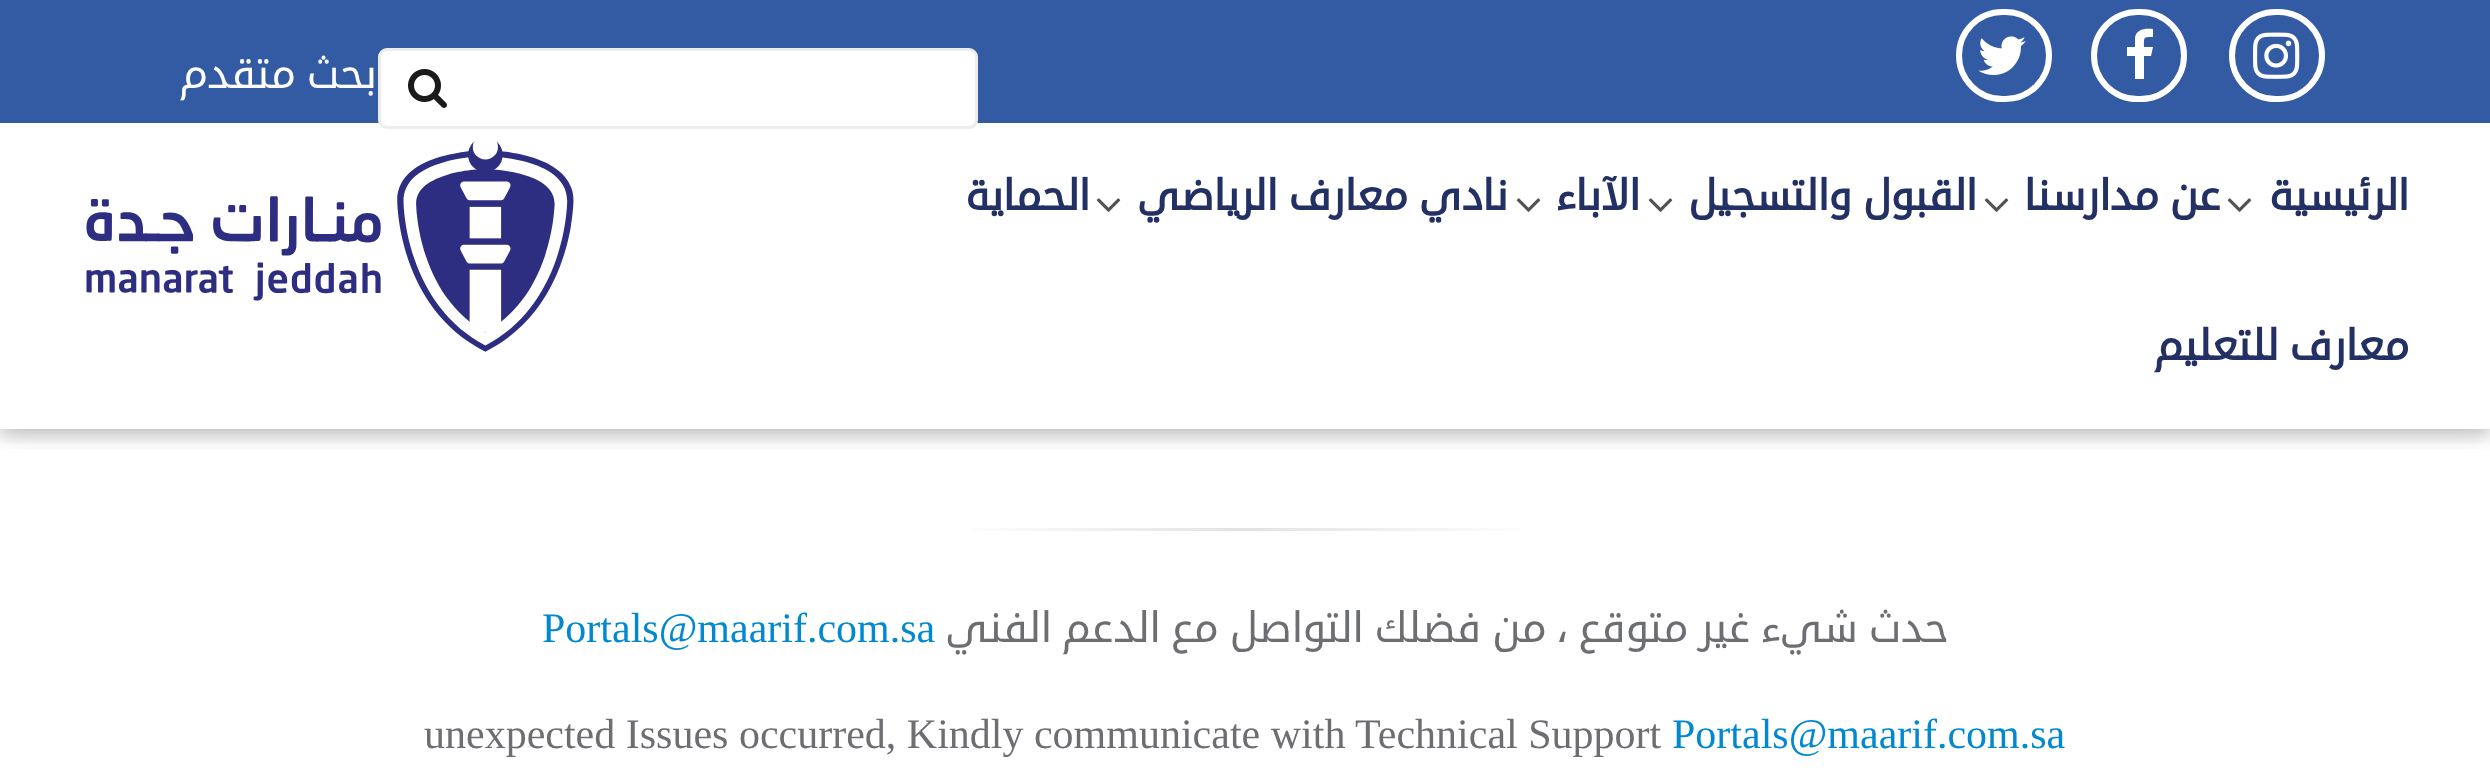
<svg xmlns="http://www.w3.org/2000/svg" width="2490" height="784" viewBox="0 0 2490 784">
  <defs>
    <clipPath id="clip1"><rect x="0" y="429" width="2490" height="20"/></clipPath>
    <clipPath id="clip2"><rect x="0" y="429" width="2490" height="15"/></clipPath>
    <linearGradient id="g1" gradientUnits="userSpaceOnUse" x1="945" y1="530" x2="1545" y2="530"><stop offset="0" stop-color="rgb(255,255,255)"/><stop offset="0.5" stop-color="rgb(226,226,226)"/><stop offset="1" stop-color="rgb(255,255,255)"/></linearGradient>
  </defs>
  <rect width="100%" height="100%" fill="rgb(255,255,255)"/>
  <g clip-path="url(#clip1)">
    <rect x="0" y="6" width="2490" height="429" fill="rgba(0,0,0,0.12)" filter="blur(15px)"/>
  </g>
  <g clip-path="url(#clip2)">
    <rect x="0" y="6" width="2490" height="429" fill="rgba(0,0,0,0.16)" filter="blur(7.5px)"/>
  </g>
  <rect x="0" y="0" width="2490" height="123" fill="rgb(51,91,163)"/>
  <rect x="2232" y="12" width="90" height="87" rx="43.5" fill="none" stroke="rgb(255,255,255)" stroke-width="6"/>
  <image x="2253" y="32" width="47" height="47" href="pic1.png"/>
  <rect x="2094" y="12" width="90" height="87" rx="43.5" fill="none" stroke="rgb(255,255,255)" stroke-width="6"/>
  <path d="M2153 29V37C2143 37 2144 37 2144 47H2153L2151 56H2144V79H2135V56H2127V47H2135V38C2136 29 2145 28 2153 29Z" fill="rgb(255,255,255)"/>
  <rect x="1959" y="12" width="90" height="87" rx="43.5" fill="none" stroke="rgb(255,255,255)" stroke-width="6"/>
  <image x="1978" y="36" width="48" height="39" href="pic2.png"/>
  <rect x="379.5" y="49.5" width="597" height="78" rx="7.5" fill="rgb(255,255,255)" stroke="rgb(237,237,237)" stroke-width="3"/>
  <image x="408" y="69" width="39" height="39" href="pic3.png"/>
  <text x="377" y="88" font-family="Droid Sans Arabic" font-size="42" direction="rtl" fill="rgb(255,255,255)">بحث متقدم</text>
  <text x="2409" y="210" font-family="Droid Sans Arabic" font-size="42" font-weight="bold" direction="rtl" fill="rgb(35,48,100)">الرئيسية</text>
  <image x="2227" y="198" width="25" height="14" href="pic4.png"/>
  <text x="2221" y="210" font-family="Droid Sans Arabic" font-size="42" font-weight="bold" direction="rtl" fill="rgb(35,48,100)">عن مدارسنا</text>
  <image x="1984" y="198" width="25" height="14" href="pic4.png"/>
  <text x="1977" y="210" font-family="Droid Sans Arabic" font-size="42" font-weight="bold" direction="rtl" fill="rgb(35,48,100)">القبول والتسجيل</text>
  <image x="1648" y="198" width="25" height="14" href="pic4.png"/>
  <text x="1640" y="210" font-family="Droid Sans Arabic" font-size="42" font-weight="bold" direction="rtl" fill="rgb(35,48,100)">الآباء</text>
  <image x="1516" y="198" width="25" height="14" href="pic4.png"/>
  <text x="1508" y="210" font-family="Droid Sans Arabic" font-size="42" font-weight="bold" direction="rtl" fill="rgb(35,48,100)">نادي معارف الرياضي</text>
  <image x="1096" y="198" width="25" height="14" href="pic4.png"/>
  <g font-family="Droid Sans Arabic" font-size="42" font-weight="bold" direction="rtl" fill="rgb(35,48,100)">
    <text x="1090" y="210">الحماية</text>
    <text x="2409" y="360">معارف للتعليم</text>
  </g>
  <image x="86" y="140" width="488" height="212" href="pic5.png"/>
  <rect x="971" y="528" width="548" height="3" fill="url(#g1)"/>
  <text x="1948" y="642" font-family="Droid Sans Arabic" font-size="42" direction="rtl" fill="rgb(109,110,113)">حدث شيء غير متوقع ، من فضلك التواصل مع الدعم الفني</text>
  <g font-family="Liberation Serif" font-size="42" fill="rgb(2,136,209)">
    <text x="542" y="642">Portals@maarif.com.sa</text>
    <text x="1672" y="748">Portals@maarif.com.sa</text>
  </g>
  <text x="424" y="748" font-family="Liberation Serif" font-size="42" fill="rgb(109,110,113)">unexpected Issues occurred, Kindly communicate with Technical Support</text>
</svg>
